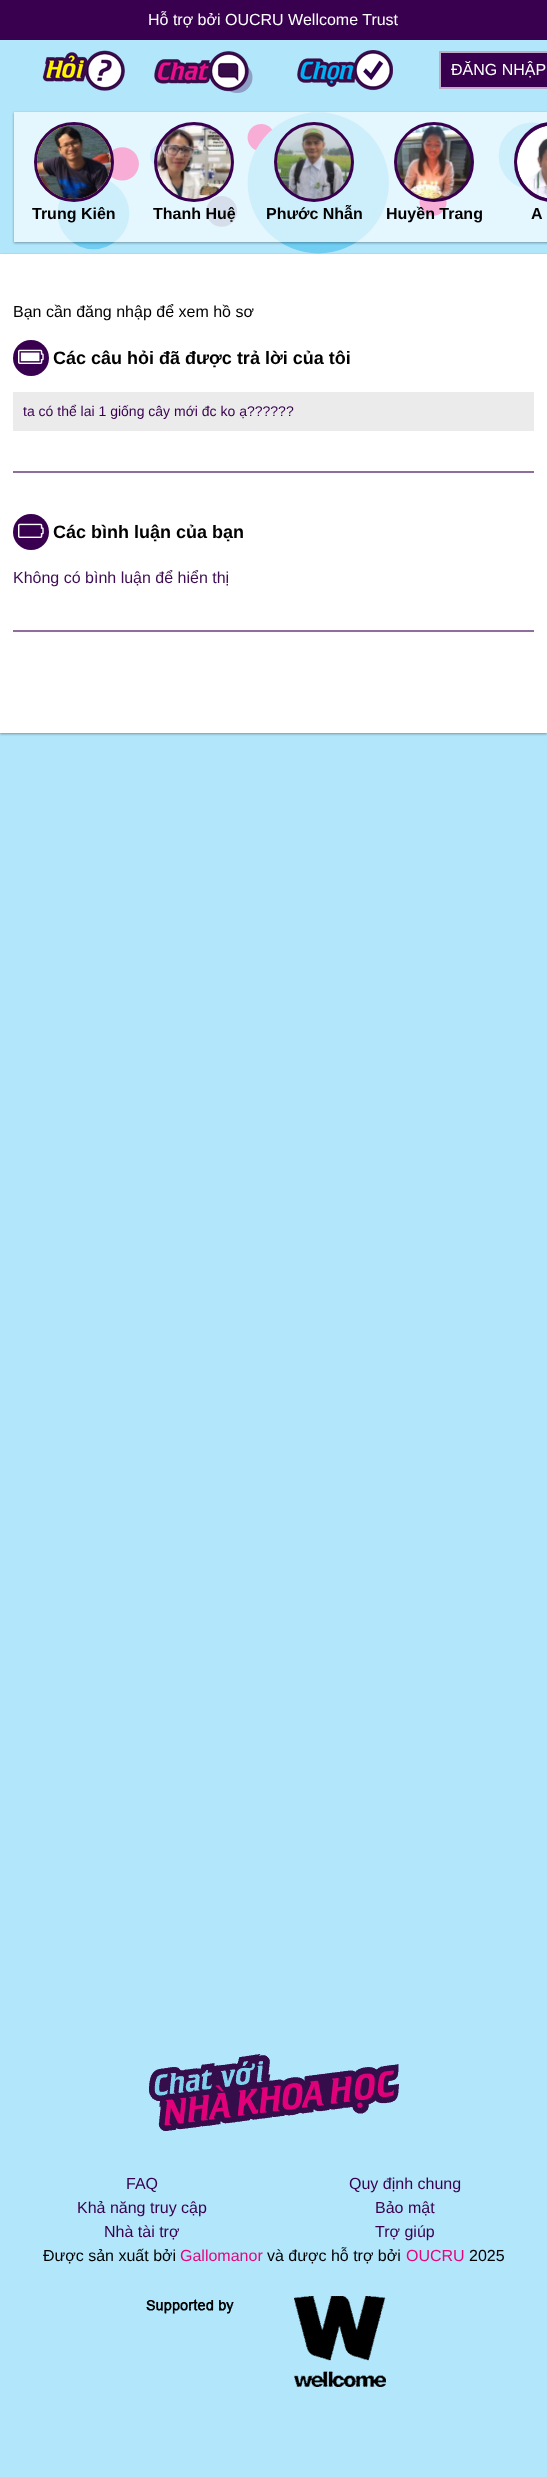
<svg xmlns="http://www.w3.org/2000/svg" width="547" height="2477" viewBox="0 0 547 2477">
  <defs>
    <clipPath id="clip1"><path d="M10 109H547V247H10ZM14 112H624V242H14Z" clip-rule="evenodd"/></clipPath>
    <clipPath id="clip2"><path d="M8 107H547V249H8ZM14 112H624V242H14Z" clip-rule="evenodd"/></clipPath>
    <clipPath id="clip3"><rect x="34" y="122" width="80" height="80" rx="40"/></clipPath>
    <radialGradient id="g1" gradientUnits="userSpaceOnUse" cx="37" cy="125" r="105"><stop offset="0" stop-color="rgb(255,215,0)"/><stop offset="0.25" stop-color="rgb(240,195,40)"/><stop offset="0.5" stop-color="rgb(197,179,88)"/><stop offset="0.75" stop-color="rgb(226,162,51)"/><stop offset="1" stop-color="rgb(255,241,163)"/></radialGradient>
  </defs>
  <rect width="100%" height="100%" fill="rgb(178,230,251)"/>
  <image x="57" y="66" width="485" height="188" href="pic1.png"/>
  <rect x="0" y="0" width="547" height="40" fill="rgb(57,0,80)"/>
  <text x="148" y="25" font-family="Liberation Sans" font-size="16" fill="rgb(255,255,255)">Hỗ trợ bởi OUCRU Wellcome Trust</text>
  <image x="42" y="50" width="83" height="41" href="pic2.png"/>
  <image x="154" y="51" width="95" height="41" href="pic3.png"/>
  <image x="297" y="50" width="96" height="41" href="pic4.png"/>
  <rect x="440" y="52" width="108" height="36" fill="rgb(57,0,80)" stroke="rgb(192,172,198)" stroke-width="2"/>
  <text x="451" y="75" font-family="Liberation Sans" font-size="16" fill="rgb(255,255,255)">ĐĂNG NHẬP</text>
  <g clip-path="url(#clip1)">
    <rect x="14" y="113" width="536" height="130" fill="rgba(0,0,0,0.24)" filter="blur(1px)"/>
  </g>
  <g clip-path="url(#clip2)">
    <rect x="14" y="113" width="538" height="130" fill="rgba(0,0,0,0.12)" filter="blur(1.5px)"/>
  </g>
  <rect x="14" y="112" width="533" height="130" fill="rgba(255,255,255,0.65)"/>
  <g clip-path="url(#clip3)">
    <rect x="37" y="125" width="74" height="74" fill="url(#g1)"/>
  </g>
  <circle cx="74" cy="162" r="38.5" fill="none" stroke="rgb(57,0,80)" stroke-width="3"/>
  <image x="37" y="125" width="74" height="74" href="pic5.png"/>
  <text x="32" y="219" font-family="Liberation Sans" font-size="16" font-weight="bold" fill="rgb(0,0,0)">Trung Kiên</text>
  <circle cx="194" cy="162" r="38.5" fill="rgb(57,0,80)" stroke="rgb(57,0,80)" stroke-width="3"/>
  <image x="157" y="125" width="74" height="74" href="pic6.png"/>
  <text x="153" y="219" font-family="Liberation Sans" font-size="16" font-weight="bold" fill="rgb(0,0,0)">Thanh Huệ</text>
  <circle cx="314" cy="162" r="38.5" fill="rgb(57,0,80)" stroke="rgb(57,0,80)" stroke-width="3"/>
  <image x="277" y="125" width="74" height="74" href="pic7.png"/>
  <text x="266" y="219" font-family="Liberation Sans" font-size="16" font-weight="bold" fill="rgb(0,0,0)">Phước Nhẫn</text>
  <circle cx="434" cy="162" r="38.5" fill="rgb(57,0,80)" stroke="rgb(57,0,80)" stroke-width="3"/>
  <image x="397" y="125" width="74" height="74" href="pic8.png"/>
  <text x="386" y="219" font-family="Liberation Sans" font-size="16" font-weight="bold" fill="rgb(0,0,0)">Huyền Trang</text>
  <rect x="515.5" y="123.5" width="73" height="77" rx="38.5" fill="rgb(57,0,80)" stroke="rgb(57,0,80)" stroke-width="3"/>
  <image x="517" y="125" width="30" height="74" href="pic9.png"/>
  <text x="531" y="219" font-family="Liberation Sans" font-size="16" font-weight="bold" fill="rgb(0,0,0)">A</text>
  <rect x="0" y="255" width="547" height="479" fill="rgba(0,0,0,0.24)" filter="blur(1px)"/>
  <rect x="0" y="255" width="547" height="479" fill="rgba(0,0,0,0.12)" filter="blur(1.5px)"/>
  <rect x="0" y="254" width="547" height="479" fill="rgb(255,255,255)"/>
  <text x="13" y="317" font-family="Liberation Sans" font-size="16" fill="rgb(0,0,0)">Bạn cần đăng nhập để xem hồ sơ</text>
  <circle cx="31" cy="358" r="18" fill="rgb(57,0,80)"/>
  <image x="18" y="349" width="26" height="15" href="pic10.png"/>
  <text x="53" y="364" font-family="Liberation Sans" font-size="18" font-weight="bold" fill="rgb(0,0,0)">Các câu hỏi đã được trả lời của tôi</text>
  <rect x="13" y="392" width="521" height="39" fill="rgb(235,235,235)"/>
  <text x="23" y="416" font-family="Liberation Sans" font-size="14" fill="rgb(57,0,80)">ta có thể lai 1 giống cây mới đc ko ạ??????</text>
  <rect x="13" y="473" width="521" height="1" fill="rgb(255,252,252)"/>
  <rect x="13" y="471" width="521" height="2" fill="rgb(142,111,156)"/>
  <circle cx="31" cy="532" r="18" fill="rgb(57,0,80)"/>
  <image x="18" y="523" width="26" height="15" href="pic11.png"/>
  <text x="53" y="538" font-family="Liberation Sans" font-size="18" font-weight="bold" fill="rgb(0,0,0)">Các bình luận của bạn</text>
  <text x="13" y="583" font-family="Liberation Sans" font-size="16" fill="rgb(63,12,84)">Không có bình luận để hiển thị</text>
  <rect x="13" y="632" width="521" height="1" fill="rgb(255,252,252)"/>
  <rect x="13" y="630" width="521" height="2" fill="rgb(142,111,156)"/>
  <image x="149" y="2054" width="250" height="77" href="pic12.png"/>
  <g font-family="Liberation Sans" font-size="16" fill="rgb(57,0,80)">
    <text x="126" y="2189">FAQ</text>
    <text x="349" y="2189">Quy định chung</text>
    <text x="77" y="2213">Khả năng truy cập</text>
    <text x="375" y="2213">Bảo mật</text>
    <text x="104" y="2237">Nhà tài trợ</text>
    <text x="375" y="2237">Trợ giúp</text>
  </g>
  <text x="43" y="2261" font-family="Liberation Sans" font-size="16" fill="rgb(0,0,0)">Được sản xuất bởi</text>
  <text x="180" y="2261" font-family="Liberation Sans" font-size="16" fill="rgb(228,5,127)">Gallomanor</text>
  <text x="267" y="2261" font-family="Liberation Sans" font-size="16" fill="rgb(0,0,0)">và được hỗ trợ bởi</text>
  <text x="406" y="2261" font-family="Liberation Sans" font-size="16" fill="rgb(228,5,127)">OUCRU</text>
  <text x="469" y="2261" font-family="Liberation Sans" font-size="16" fill="rgb(0,0,0)">2025</text>
  <image x="146" y="2296" width="240" height="91" href="pic13.png"/>
</svg>
